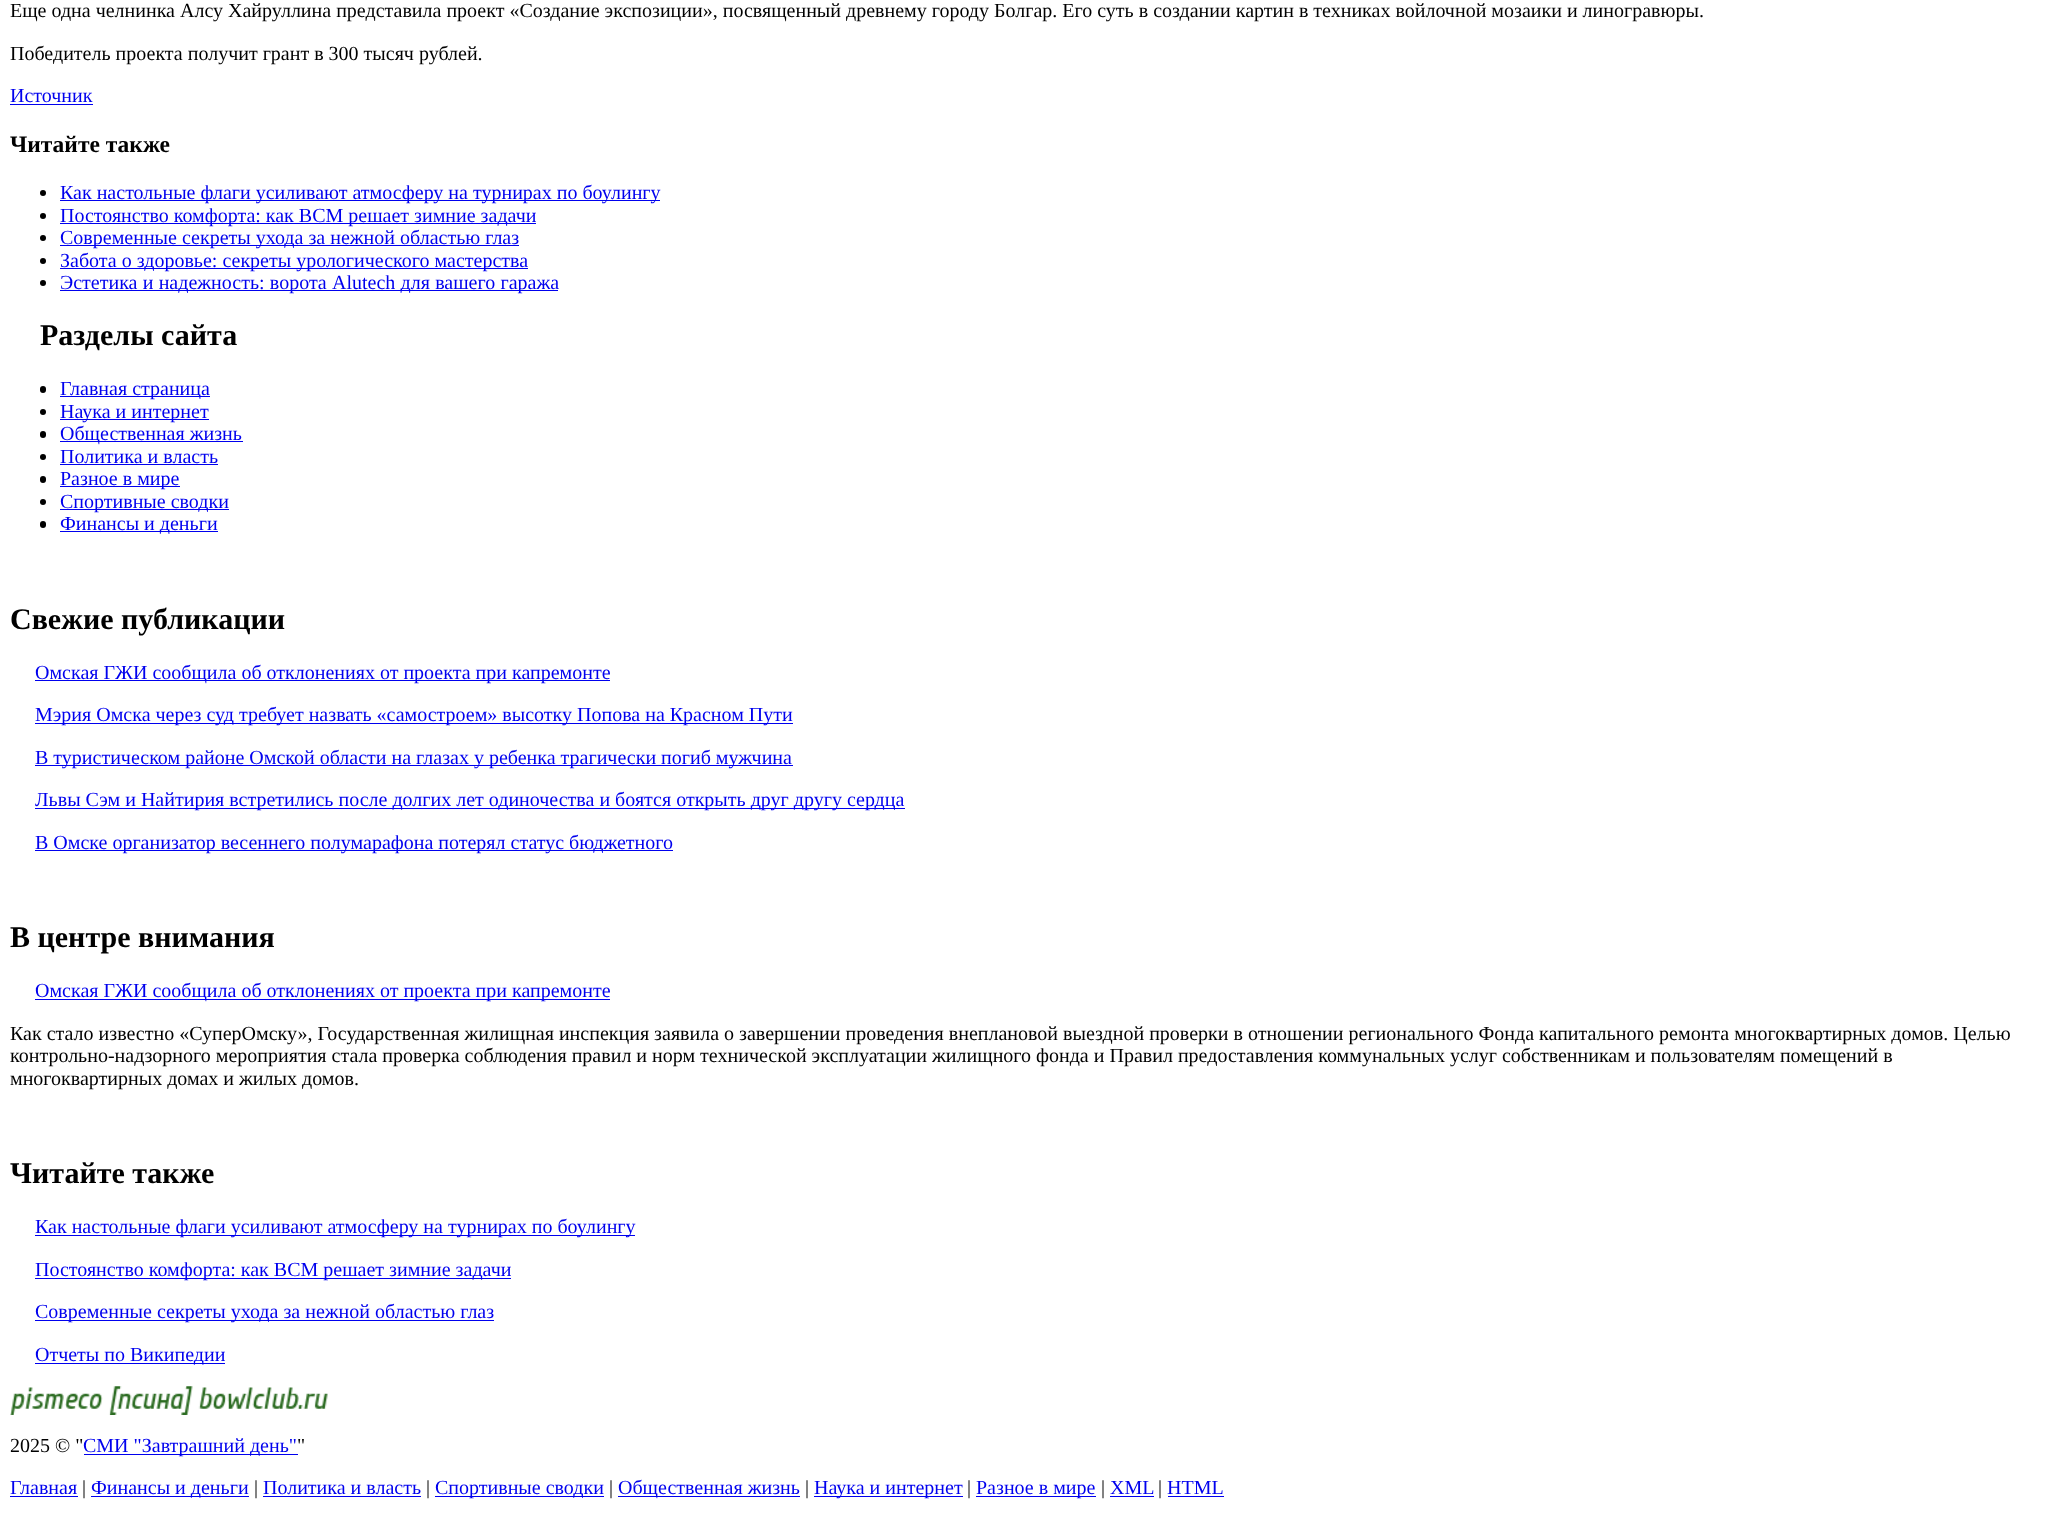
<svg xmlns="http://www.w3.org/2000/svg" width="2049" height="1520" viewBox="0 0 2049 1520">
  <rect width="100%" height="100%" fill="rgb(255,255,255)"/>
  <g font-family="Liberation Serif" font-size="20" fill="rgb(0,0,0)">
    <text x="10" y="17">Еще одна челнинка Алсу Хайруллина представила проект «Создание экспозиции», посвященный древнему городу Болгар. Его суть в создании картин в техниках войлочной мозаики и линогравюры.</text>
    <text x="10" y="60">Победитель проекта получит грант в 300 тысяч рублей.</text>
  </g>
  <text x="10" y="102" font-family="Liberation Serif" font-size="20" fill="rgb(0,0,238)">Источник</text>
  <rect x="10" y="104" width="83" height="1" fill="rgb(0,0,238)"/>
  <text x="10" y="152" font-family="Liberation Serif" font-size="23.5" font-weight="bold" fill="rgb(0,0,0)">Читайте также</text>
  <circle cx="43" cy="193" r="3" fill="rgb(0,0,0)"/>
  <rect x="60" y="200" width="600" height="1" fill="rgb(0,0,238)"/>
  <text x="60" y="199" font-family="Liberation Serif" font-size="20" fill="rgb(0,0,238)">Как настольные флаги усиливают атмосферу на турнирах по боулингу</text>
  <circle cx="43" cy="216" r="3" fill="rgb(0,0,0)"/>
  <rect x="60" y="223" width="476" height="1" fill="rgb(0,0,238)"/>
  <text x="60" y="222" font-family="Liberation Serif" font-size="20" fill="rgb(0,0,238)">Постоянство комфорта: как ВСМ решает зимние задачи</text>
  <circle cx="43" cy="238" r="3" fill="rgb(0,0,0)"/>
  <rect x="60" y="245" width="459" height="1" fill="rgb(0,0,238)"/>
  <text x="60" y="244" font-family="Liberation Serif" font-size="20" fill="rgb(0,0,238)">Современные секреты ухода за нежной областью глаз</text>
  <circle cx="43" cy="261" r="3" fill="rgb(0,0,0)"/>
  <rect x="60" y="268" width="468" height="1" fill="rgb(0,0,238)"/>
  <text x="60" y="267" font-family="Liberation Serif" font-size="20" fill="rgb(0,0,238)">Забота о здоровье: секреты урологического мастерства</text>
  <circle cx="43" cy="283" r="3" fill="rgb(0,0,0)"/>
  <rect x="60" y="290" width="498" height="1" fill="rgb(0,0,238)"/>
  <text x="60" y="289" word-spacing="0.25" font-family="Liberation Serif" font-size="20" fill="rgb(0,0,238)">Эстетика и надежность: ворота Alutech для вашего гаража</text>
  <text x="40" y="345" font-family="Liberation Serif" font-size="30" font-weight="bold" fill="rgb(0,0,0)">Разделы сайта</text>
  <rect x="40" y="386" width="6" height="7" rx="3" fill="rgb(0,0,0)"/>
  <rect x="60" y="396" width="150" height="1" fill="rgb(0,0,238)"/>
  <text x="60" y="395" font-family="Liberation Serif" font-size="20" fill="rgb(0,0,238)">Главная страница</text>
  <circle cx="43" cy="412" r="3" fill="rgb(0,0,0)"/>
  <rect x="60" y="419" width="149" height="1" fill="rgb(0,0,238)"/>
  <text x="60" y="418" font-family="Liberation Serif" font-size="20" fill="rgb(0,0,238)">Наука и интернет</text>
  <rect x="40" y="431" width="6" height="7" rx="3" fill="rgb(0,0,0)"/>
  <rect x="60" y="441" width="183" height="1" fill="rgb(0,0,238)"/>
  <text x="60" y="440" font-family="Liberation Serif" font-size="20" fill="rgb(0,0,238)">Общественная жизнь</text>
  <circle cx="43" cy="457" r="3" fill="rgb(0,0,0)"/>
  <text x="60" y="463" font-family="Liberation Serif" font-size="20" fill="rgb(0,0,238)">Политика и власть</text>
  <rect x="60" y="464" width="158" height="1" fill="rgb(0,0,238)"/>
  <rect x="40" y="476" width="6" height="7" rx="3" fill="rgb(0,0,0)"/>
  <rect x="60" y="486" width="120" height="1" fill="rgb(0,0,238)"/>
  <text x="60" y="485" font-family="Liberation Serif" font-size="20" fill="rgb(0,0,238)">Разное в мире</text>
  <circle cx="43" cy="502" r="3" fill="rgb(0,0,0)"/>
  <rect x="60" y="509" width="169" height="1" fill="rgb(0,0,238)"/>
  <text x="60" y="508" font-family="Liberation Serif" font-size="20" fill="rgb(0,0,238)">Спортивные сводки</text>
  <rect x="40" y="521" width="6" height="7" rx="3" fill="rgb(0,0,0)"/>
  <rect x="60" y="531" width="158" height="1" fill="rgb(0,0,238)"/>
  <text x="60" y="530" font-family="Liberation Serif" font-size="20" fill="rgb(0,0,238)">Финансы и деньги</text>
  <text x="10" y="629" font-family="Liberation Serif" font-size="30" font-weight="bold" fill="rgb(0,0,0)">Свежие публикации</text>
  <rect x="35" y="680" width="575" height="1" fill="rgb(0,0,238)"/>
  <text x="35" y="679" font-family="Liberation Serif" font-size="20" fill="rgb(0,0,238)">Омская ГЖИ сообщила об отклонениях от проекта при капремонте</text>
  <rect x="35" y="723" width="758" height="1" fill="rgb(0,0,238)"/>
  <text x="35" y="721" font-family="Liberation Serif" font-size="20" fill="rgb(0,0,238)">Мэрия Омска через суд требует назвать «самостроем» высотку Попова на Красном Пути</text>
  <rect x="35" y="765" width="758" height="1" fill="rgb(0,0,238)"/>
  <text x="35" y="764" font-family="Liberation Serif" font-size="20" fill="rgb(0,0,238)">В туристическом районе Омской области на глазах у ребенка трагически погиб мужчина</text>
  <rect x="35" y="808" width="870" height="1" fill="rgb(0,0,238)"/>
  <text x="35" y="806" font-family="Liberation Serif" font-size="20" fill="rgb(0,0,238)">Львы Сэм и Найтирия встретились после долгих лет одиночества и боятся открыть друг другу сердца</text>
  <rect x="35" y="850" width="638" height="1" fill="rgb(0,0,238)"/>
  <text x="35" y="849" font-family="Liberation Serif" font-size="20" fill="rgb(0,0,238)">В Омске организатор весеннего полумарафона потерял статус бюджетного</text>
  <text x="10" y="947" font-family="Liberation Serif" font-size="30" font-weight="bold" fill="rgb(0,0,0)">В центре внимания</text>
  <rect x="35" y="999" width="575" height="1" fill="rgb(0,0,238)"/>
  <text x="35" y="997" font-family="Liberation Serif" font-size="20" fill="rgb(0,0,238)">Омская ГЖИ сообщила об отклонениях от проекта при капремонте</text>
  <g font-family="Liberation Serif" font-size="20" fill="rgb(0,0,0)">
    <text>
      <tspan x="10" y="1040">Как стало известно «СуперОмску», Государственная жилищная инспекция заявила о завершении проведения внеплановой выездной проверки в отношении регионального Фонда капитального ремонта многоквартирных домов. Целью</tspan>
      <tspan x="10" y="1062">контрольно-надзорного мероприятия стала проверка соблюдения правил и норм технической эксплуатации жилищного фонда и Правил предоставления коммунальных услуг собственникам и пользователям помещений в</tspan>
      <tspan x="10" y="1085">многоквартирных домах и жилых домов.</tspan>
    </text>
  </g>
  <text x="10" y="1183" font-family="Liberation Serif" font-size="30" font-weight="bold" fill="rgb(0,0,0)">Читайте также</text>
  <rect x="35" y="1235" width="600" height="1" fill="rgb(0,0,238)"/>
  <text x="35" y="1233" font-family="Liberation Serif" font-size="20" fill="rgb(0,0,238)">Как настольные флаги усиливают атмосферу на турнирах по боулингу</text>
  <rect x="35" y="1278" width="476" height="1" fill="rgb(0,0,238)"/>
  <text x="35" y="1276" font-family="Liberation Serif" font-size="20" fill="rgb(0,0,238)">Постоянство комфорта: как ВСМ решает зимние задачи</text>
  <rect x="35" y="1320" width="459" height="1" fill="rgb(0,0,238)"/>
  <text x="35" y="1318" font-family="Liberation Serif" font-size="20" fill="rgb(0,0,238)">Современные секреты ухода за нежной областью глаз</text>
  <rect x="35" y="1363" width="190" height="1" fill="rgb(0,0,238)"/>
  <text x="35" y="1361" font-family="Liberation Serif" font-size="20" fill="rgb(0,0,238)">Отчеты по Википедии</text>
  <image x="10" y="1386" width="318" height="29" href="pic1.png"/>
  <text x="10" y="1452" font-family="Liberation Serif" font-size="20" fill="rgb(0,0,0)">2025 © "</text>
  <rect x="84" y="1454" width="214" height="1" fill="rgb(0,0,238)"/>
  <text x="83" y="1452" font-family="Liberation Serif" font-size="20" fill="rgb(0,0,238)">СМИ "Завтрашний день"</text>
  <text x="297" y="1452" font-family="Liberation Serif" font-size="20" fill="rgb(0,0,0)">"</text>
  <text x="10" y="1494" font-family="Liberation Serif" font-size="20" fill="rgb(0,0,238)">Главная</text>
  <rect x="10" y="1496" width="68" height="1" fill="rgb(0,0,238)"/>
  <text x="82" y="1494" font-family="Liberation Serif" font-size="20" fill="rgb(0,0,0)">|</text>
  <rect x="91" y="1496" width="158" height="1" fill="rgb(0,0,238)"/>
  <text x="91" y="1494" font-family="Liberation Serif" font-size="20" fill="rgb(0,0,238)">Финансы и деньги</text>
  <text x="254" y="1494" font-family="Liberation Serif" font-size="20" fill="rgb(0,0,0)">|</text>
  <text x="263" y="1494" font-family="Liberation Serif" font-size="20" fill="rgb(0,0,238)">Политика и власть</text>
  <rect x="263" y="1496" width="158" height="1" fill="rgb(0,0,238)"/>
  <text x="426" y="1494" font-family="Liberation Serif" font-size="20" fill="rgb(0,0,0)">|</text>
  <rect x="435" y="1496" width="169" height="1" fill="rgb(0,0,238)"/>
  <text x="435" y="1494" font-family="Liberation Serif" font-size="20" fill="rgb(0,0,238)">Спортивные сводки</text>
  <text x="609" y="1494" font-family="Liberation Serif" font-size="20" fill="rgb(0,0,0)">|</text>
  <rect x="618" y="1496" width="182" height="1" fill="rgb(0,0,238)"/>
  <text x="618" y="1494" font-family="Liberation Serif" font-size="20" fill="rgb(0,0,238)">Общественная жизнь</text>
  <text x="805" y="1494" font-family="Liberation Serif" font-size="20" fill="rgb(0,0,0)">|</text>
  <rect x="814" y="1496" width="149" height="1" fill="rgb(0,0,238)"/>
  <text x="814" y="1494" font-family="Liberation Serif" font-size="20" fill="rgb(0,0,238)">Наука и интернет</text>
  <text x="967" y="1494" font-family="Liberation Serif" font-size="20" fill="rgb(0,0,0)">|</text>
  <rect x="976" y="1496" width="120" height="1" fill="rgb(0,0,238)"/>
  <text x="976" y="1494" font-family="Liberation Serif" font-size="20" fill="rgb(0,0,238)">Разное в мире</text>
  <text x="1101" y="1494" font-family="Liberation Serif" font-size="20" fill="rgb(0,0,0)">|</text>
  <text x="1110" y="1494" font-family="Liberation Serif" font-size="20" fill="rgb(0,0,238)">XML</text>
  <rect x="1110" y="1496" width="44" height="1" fill="rgb(0,0,238)"/>
  <text x="1158" y="1494" font-family="Liberation Serif" font-size="20" fill="rgb(0,0,0)">|</text>
  <text x="1167" y="1494" font-family="Liberation Serif" font-size="20" fill="rgb(0,0,238)">HTML</text>
  <rect x="1168" y="1496" width="56" height="1" fill="rgb(0,0,238)"/>
</svg>
